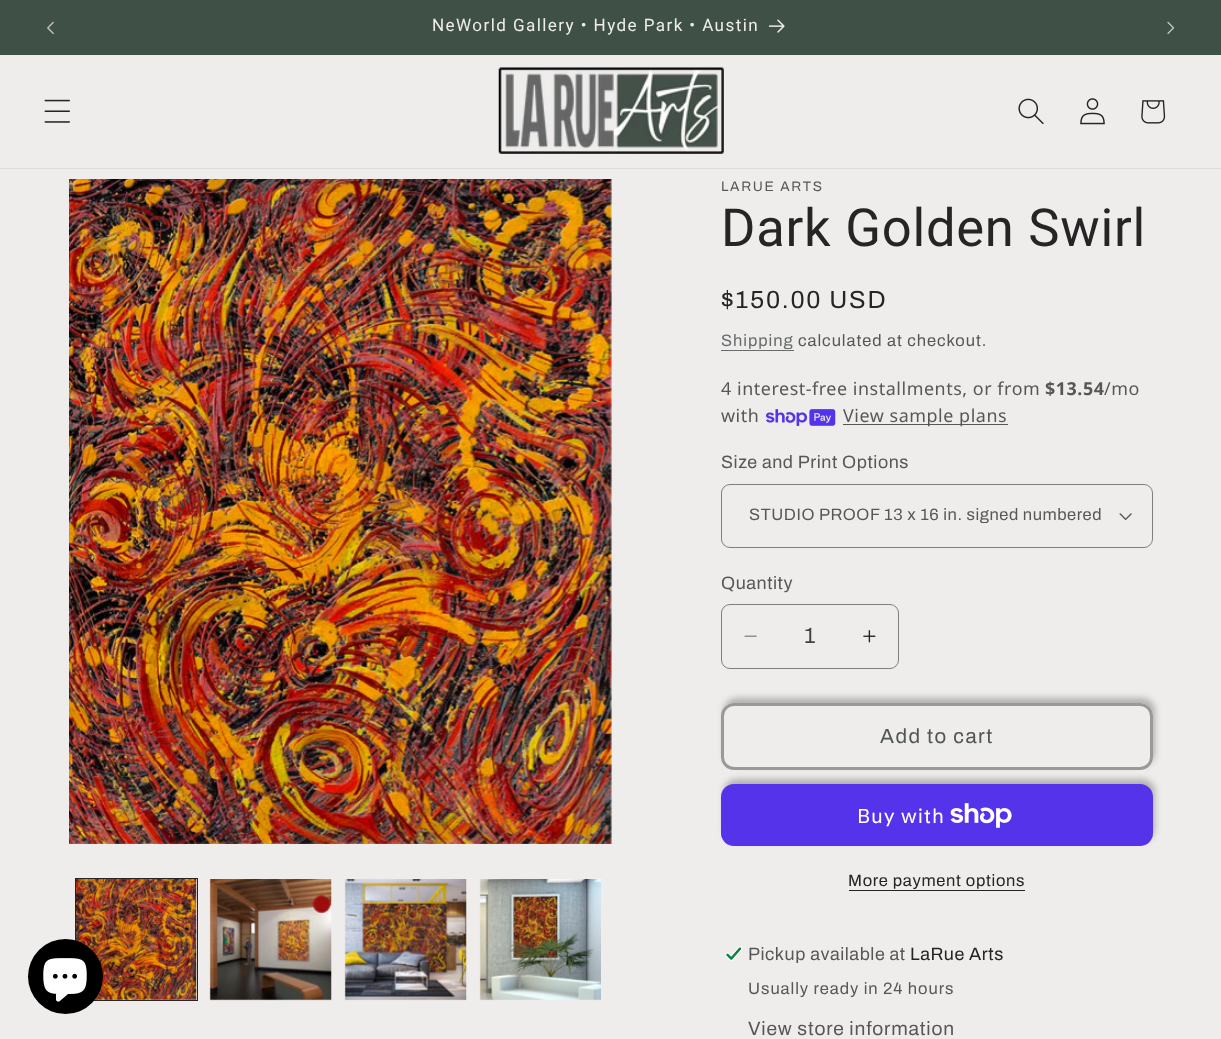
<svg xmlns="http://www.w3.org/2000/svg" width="1221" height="1039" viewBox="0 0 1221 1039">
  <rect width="100%" height="100%" fill="rgb(239,236,236)"/>
  <rect x="0" y="0" width="1221" height="55" fill="rgb(63,81,71)"/>
  <image x="47" y="21" width="7" height="13" href="pic1.png"/>
  <text x="432" y="31" font-family="Roboto" font-size="17.1" letter-spacing="1.4" fill="rgb(239,236,236)">NeWorld Gallery • Hyde Park • Austin</text>
  <image x="769" y="19" width="16" height="14" href="pic2.png"/>
  <image x="1167" y="21" width="8" height="13" href="pic3.png"/>
  <rect x="0" y="168" width="1221" height="1" fill="rgb(223,220,220)"/>
  <image x="44" y="99" width="26" height="24" href="pic4.png"/>
  <image x="498" y="67" width="226" height="87" href="pic5.png"/>
  <image x="1018" y="98" width="26" height="26" href="pic6.png"/>
  <image x="1080" y="98" width="25" height="27" href="pic7.png"/>
  <image x="1141" y="100" width="25" height="24" href="pic8.png"/>
  <rect x="75.5" y="878.5" width="122" height="122" fill="none" stroke="rgb(37,37,37)"/>
  <image x="76" y="879" width="121" height="122" href="pic11.png"/>
  <circle cx="65.5" cy="976.5" r="37.5" fill="rgb(0,0,0)"/>
  <image x="43" y="958" width="44" height="44" href="pic9.png"/>
  <image x="69" y="179" width="543" height="665" href="pic10.png"/>
  <image x="209" y="879" width="123" height="122" href="pic12.png"/>
  <image x="344" y="879" width="123" height="122" href="pic13.png"/>
  <image x="479" y="879" width="122" height="122" href="pic14.png"/>
  <text x="721" y="191" font-family="Archivo" font-size="13.75" letter-spacing="1.75" fill="rgb(88,87,87)">LARUE ARTS</text>
  <text x="721" y="246" font-family="Roboto" font-size="52.5" letter-spacing="0.75" fill="rgb(37,37,37)">Dark Golden Swirl</text>
  <text x="721" y="308" font-family="Archivo" font-size="24.75" letter-spacing="1.75" fill="rgb(37,37,37)">$150.00 USD</text>
  <text x="721" y="346" font-family="Archivo" font-size="16.5" letter-spacing="0.95" fill="rgb(104,109,108)">Shipping</text>
  <rect x="721" y="350" width="73" height="1" fill="rgb(104,109,108)"/>
  <text x="798" y="346" font-family="Archivo" font-size="16.5" letter-spacing="0.95" fill="rgb(88,87,87)">calculated at checkout.</text>
  <text x="721" y="395" font-family="Noto Sans" font-size="17.9" letter-spacing="0.55" fill="rgb(88,87,87)">4 interest-free installments, or from</text>
  <text x="1045" y="395" font-family="Noto Sans" font-size="17.9" font-weight="bold" letter-spacing="0.55" fill="rgb(88,87,87)">$13.54</text>
  <g font-family="Noto Sans" font-size="17.9" letter-spacing="0.55" fill="rgb(88,87,87)">
    <text x="1104" y="395">/mo</text>
    <text x="721" y="422">with</text>
  </g>
  <image x="766" y="409" width="70" height="17" href="pic15.png"/>
  <rect x="843" y="424" width="165" height="1" fill="rgb(88,87,87)"/>
  <text x="843" y="422" font-family="Noto Sans" font-size="17.9" letter-spacing="0.55" fill="rgb(88,87,87)">View sample plans</text>
  <text x="721" y="468" font-family="Archivo" font-size="17.9" letter-spacing="0.55" fill="rgb(88,87,87)">Size and Print Options</text>
  <image x="1119" y="513" width="13" height="7" href="pic16.png"/>
  <rect x="721.5" y="484.5" width="431" height="63" rx="8.5" fill="none" stroke="rgb(128,127,127)"/>
  <text x="749" y="520" font-family="Archivo" font-size="16.5" letter-spacing="0.55" fill="rgb(88,87,87)">STUDIO PROOF 13 x 16 in. signed numbered</text>
  <text x="721" y="589" font-family="Archivo" font-size="17.9" letter-spacing="0.55" fill="rgb(88,87,87)">Quantity</text>
  <image x="744" y="635" width="13" height="2" href="pic17.png"/>
  <image x="863" y="630" width="13" height="13" href="pic18.png"/>
  <rect x="721.5" y="604.5" width="177" height="64" rx="8.5" fill="none" stroke="rgb(128,127,127)"/>
  <text x="804" y="643" font-family="Archivo" font-size="22" fill="rgb(67,67,67)">1</text>
  <rect x="724" y="698" width="431" height="67" rx="13" fill="rgba(37,37,37,0.3)" filter="blur(3px)"/>
  <rect x="724" y="779" width="431" height="62" rx="13" fill="rgba(37,37,37,0.3)" filter="blur(3px)"/>
  <rect x="721" y="703" width="432" height="67" rx="13" fill="rgb(239,236,236)"/>
  <rect x="722.5" y="704.5" width="429" height="64" rx="11.5" fill="none" stroke="rgb(239,236,236)" stroke-width="3"/>
  <rect x="722.5" y="704.5" width="429" height="64" rx="11.5" fill="none" stroke="rgba(80,86,85,0.55)" stroke-width="3"/>
  <text x="880" y="743" font-family="Archivo" font-size="20.5" letter-spacing="1.4" fill="rgb(80,86,85)">Add to cart</text>
  <rect x="721" y="784" width="432" height="62" rx="13" fill="rgb(84,51,235)"/>
  <text x="857" y="823" font-family="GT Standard" font-size="20" letter-spacing="0.8" fill="rgb(255,255,255)">Buy with</text>
  <image x="950" y="803" width="62" height="25" href="pic19.png"/>
  <text x="848" y="886" font-family="Archivo" font-size="16.5" letter-spacing="0.7" fill="rgb(37,37,37)">More payment options</text>
  <rect x="849" y="890" width="176" height="1" fill="rgb(37,37,37)"/>
  <image x="725" y="946" width="18" height="15" href="pic20.png"/>
  <text x="748" y="960" font-family="Archivo" font-size="17.9" letter-spacing="0.55" fill="rgb(88,87,87)">Pickup available at</text>
  <text x="910" y="960" font-family="Archivo" font-size="17.9" letter-spacing="0.55" fill="rgb(37,37,37)">LaRue Arts</text>
  <text x="748" y="994" font-family="Archivo" font-size="16.5" letter-spacing="0.95" fill="rgb(88,87,87)">Usually ready in 24 hours</text>
  <text x="748" y="1035" font-family="Archivo" font-size="19.25" letter-spacing="0.8" fill="rgb(88,87,87)">View store information</text>
</svg>
